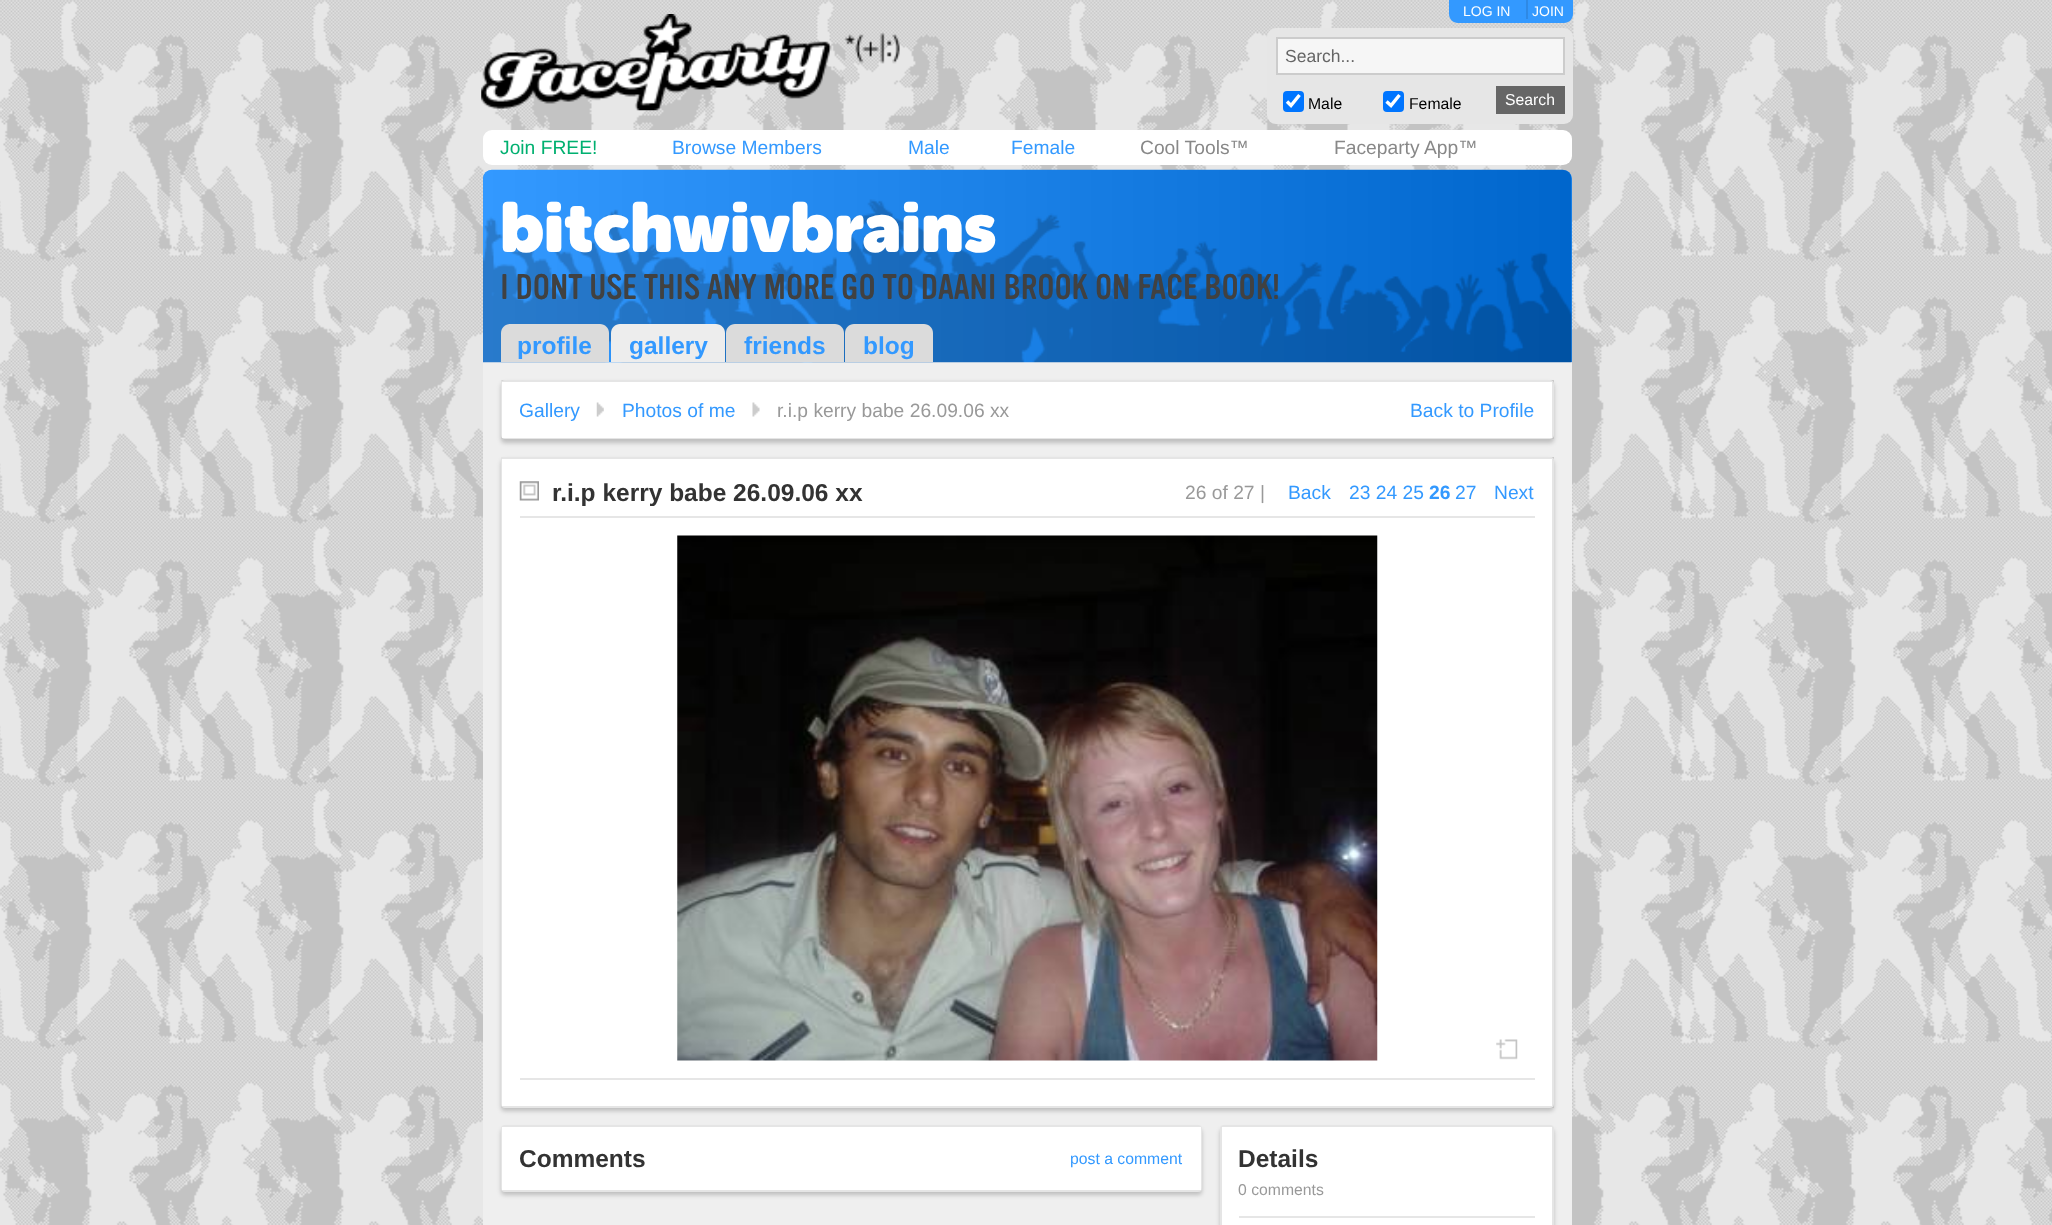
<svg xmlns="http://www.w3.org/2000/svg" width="2052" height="1225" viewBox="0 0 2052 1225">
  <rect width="100%" height="100%" fill="rgb(255,255,255)"/>
  <image x="0" y="0" width="2052" height="1225" href="pic1.png"/>
  <image x="481" y="14" width="419" height="97" href="pic2.png"/>
  <path d="M1449 0H1573V14C1573 19 1569 23 1564 23H1458C1453 23 1449 19 1449 14Z" fill="rgb(51,153,255)"/>
  <rect x="1526" y="0" width="2" height="19" fill="rgb(46,137,229)"/>
  <g font-family="Liberation Sans" font-size="14" fill="rgb(255,255,255)">
    <text x="1463" y="16">LOG IN</text>
    <text x="1532" y="16">JOIN</text>
  </g>
  <rect x="1267" y="28" width="306" height="96" rx="9" fill="rgb(230,230,230)"/>
  <rect x="1277" y="38" width="287" height="36" fill="rgb(246,246,246)" stroke="rgb(204,204,204)" stroke-width="2"/>
  <text x="1285" y="62" font-family="Liberation Sans" font-size="17.5" fill="rgb(102,102,102)">Search...</text>
  <rect x="1283" y="91" width="21" height="21" rx="4" fill="rgb(0,117,255)"/>
  <path d="M1287 101.5L1291 105.5L1299.5 95" fill="none" stroke="rgb(255,255,255)" stroke-width="3.4"/>
  <text x="1308" y="109" font-family="Liberation Sans" font-size="15.75" fill="rgb(0,0,0)">Male</text>
  <rect x="1383" y="91" width="21" height="21" rx="4" fill="rgb(0,117,255)"/>
  <path d="M1386.5 101.5L1391 105.5L1399.5 95" fill="none" stroke="rgb(255,255,255)" stroke-width="3.4"/>
  <text x="1409" y="109" font-family="Liberation Sans" font-size="15.75" fill="rgb(0,0,0)">Female</text>
  <rect x="1496" y="86" width="69" height="28" fill="rgb(102,102,102)"/>
  <text x="1505" y="105" font-family="Liberation Sans" font-size="15.75" fill="rgb(255,255,255)">Search</text>
  <rect x="483" y="130" width="1089" height="35" rx="9" fill="rgb(255,255,255)"/>
  <text x="500" y="154" font-family="Liberation Sans" font-size="19.25" fill="rgb(0,176,112)">Join FREE!</text>
  <g font-family="Liberation Sans" font-size="19.25" fill="rgb(51,153,255)">
    <text x="672" y="154">Browse Members</text>
    <text x="908" y="154">Male</text>
    <text x="1011" y="154">Female</text>
  </g>
  <g font-family="Liberation Sans" font-size="19.25" fill="rgb(136,136,136)">
    <text x="1140" y="154">Cool Tools™</text>
    <text x="1334" y="154">Faceparty App™</text>
  </g>
  <path d="M492 170H1563C1568 170 1572 174 1572 179V362H483V179C483 174 487 170 492 170Z" fill="rgb(51,153,255)"/>
  <rect x="483" y="362" width="1089" height="18" fill="rgb(239,239,239)"/>
  <image x="482" y="169" width="1090" height="194" href="pic3.png"/>
  <text x="500" y="252" font-family="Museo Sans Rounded" font-size="70" font-weight="900" fill="rgb(255,255,255)">bitchwivbrains</text>
  <text x="500" y="299" font-family="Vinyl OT" font-size="35" fill="rgb(65,65,65)">I DONT USE THIS ANY MORE GO TO DAANI BROOK ON FACE BOOK!</text>
  <path d="M510 324H600C605 324 609 328 609 333V362H501V333C501 328 505 324 510 324Z" fill="rgb(219,219,219)"/>
  <text x="517" y="354" font-family="Liberation Sans" font-size="24.5" font-weight="bold" fill="rgb(51,153,255)">profile</text>
  <path d="M620 324H716C721 324 725 328 725 333V362H611V333C611 328 615 324 620 324Z" fill="rgb(237,237,237)"/>
  <text x="629" y="354" font-family="Liberation Sans" font-size="24.5" font-weight="bold" fill="rgb(51,153,255)">gallery</text>
  <path d="M735 324H835C840 324 844 328 844 333V362H726V333C726 328 730 324 735 324Z" fill="rgb(219,219,219)"/>
  <text x="744" y="354" font-family="Liberation Sans" font-size="24.5" font-weight="bold" fill="rgb(51,153,255)">friends</text>
  <path d="M854 324H924C929 324 933 328 933 333V362H845V333C845 328 849 324 854 324Z" fill="rgb(219,219,219)"/>
  <text x="863" y="354" font-family="Liberation Sans" font-size="24.5" font-weight="bold" fill="rgb(51,153,255)">blog</text>
  <rect x="483" y="380" width="18" height="59" fill="rgb(239,239,239)"/>
  <rect x="1554" y="380" width="18" height="59" fill="rgb(239,239,239)"/>
  <rect x="483" y="439" width="1089" height="18" fill="rgb(239,239,239)"/>
  <rect x="501" y="383" width="1053" height="60" rx="4" fill="rgba(0,0,0,0.2)" filter="blur(2px)"/>
  <rect x="502" y="381" width="1051" height="57" rx="3" fill="none" stroke="rgb(229,229,229)" stroke-width="2"/>
  <rect x="502" y="382" width="1050" height="56" fill="rgb(255,255,255)"/>
  <text x="519" y="417" font-family="Liberation Sans" font-size="19.25" fill="rgb(51,153,255)">Gallery</text>
  <image x="596" y="402" width="8" height="15" href="pic4.png"/>
  <text x="622" y="417" font-family="Liberation Sans" font-size="19.25" fill="rgb(51,153,255)">Photos of me</text>
  <image x="752" y="402" width="8" height="15" href="pic5.png"/>
  <text x="777" y="417" font-family="Liberation Sans" font-size="19.25" fill="rgb(153,153,153)">r.i.p kerry babe 26.09.06 xx</text>
  <text x="1410" y="417" font-family="Liberation Sans" font-size="19.25" fill="rgb(51,153,255)">Back to Profile</text>
  <rect x="483" y="457" width="18" height="651" fill="rgb(239,239,239)"/>
  <rect x="1554" y="457" width="18" height="651" fill="rgb(239,239,239)"/>
  <rect x="483" y="1108" width="1089" height="17" fill="rgb(239,239,239)"/>
  <rect x="501" y="460" width="1053" height="651" rx="4" fill="rgba(0,0,0,0.2)" filter="blur(2px)"/>
  <rect x="502" y="458" width="1051" height="649" rx="3" fill="none" stroke="rgb(229,229,229)" stroke-width="2"/>
  <rect x="502" y="459" width="1050" height="647" fill="rgb(255,255,255)"/>
  <image x="519" y="481" width="20" height="20" href="pic6.png"/>
  <text x="552" y="501" font-family="Liberation Sans" font-size="24.5" font-weight="bold" fill="rgb(51,51,51)">r.i.p kerry babe 26.09.06 xx</text>
  <text x="1185" y="499" font-family="Liberation Sans" font-size="19.25" fill="rgb(153,153,153)">26 of 27 |</text>
  <g font-family="Liberation Sans" font-size="19.25" fill="rgb(51,153,255)">
    <text x="1288" y="499">Back</text>
    <text x="1349" y="499">23 24 25</text>
  </g>
  <text x="1429" y="499" font-family="Liberation Sans" font-size="19.25" font-weight="bold" fill="rgb(51,153,255)">26</text>
  <g font-family="Liberation Sans" font-size="19.25" fill="rgb(51,153,255)">
    <text x="1455" y="499">27</text>
    <text x="1494" y="499">Next</text>
  </g>
  <rect x="520" y="516" width="1015" height="2" fill="rgb(230,230,230)"/>
  <image x="677" y="535" width="701" height="526" href="pic7.png"/>
  <image x="1496" y="1039" width="22" height="21" href="pic8.png"/>
  <rect x="520" y="1078" width="1015" height="2" fill="rgb(230,230,230)"/>
  <rect x="483" y="1125" width="737" height="100" fill="rgb(239,239,239)"/>
  <rect x="1554" y="1125" width="18" height="100" fill="rgb(239,239,239)"/>
  <rect x="501" y="1129" width="701" height="66" rx="4" fill="rgba(0,0,0,0.2)" filter="blur(2px)"/>
  <rect x="502" y="1126" width="699" height="65" rx="3" fill="none" stroke="rgb(229,229,229)" stroke-width="2"/>
  <rect x="502" y="1127" width="699" height="63" fill="rgb(255,255,255)"/>
  <text x="519" y="1167" font-family="Liberation Sans" font-size="24.5" font-weight="bold" fill="rgb(51,51,51)">Comments</text>
  <text x="1070" y="1164" font-family="Liberation Sans" font-size="15.75" fill="rgb(51,153,255)">post a comment</text>
  <rect x="1220" y="1125" width="334" height="4" fill="rgb(239,239,239)"/>
  <rect x="1220" y="1129" width="334" height="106" rx="4" fill="rgba(0,0,0,0.2)" filter="blur(2px)"/>
  <rect x="1221" y="1126" width="332" height="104" rx="3" fill="none" stroke="rgb(229,229,229)" stroke-width="2"/>
  <rect x="1222" y="1127" width="330" height="98" fill="rgb(255,255,255)"/>
  <text x="1238" y="1167" font-family="Liberation Sans" font-size="24.5" font-weight="bold" fill="rgb(51,51,51)">Details</text>
  <text x="1238" y="1195" font-family="Liberation Sans" font-size="15.75" fill="rgb(153,153,153)">0 comments</text>
  <rect x="1239" y="1216" width="296" height="2" fill="rgb(230,230,230)"/>
</svg>
